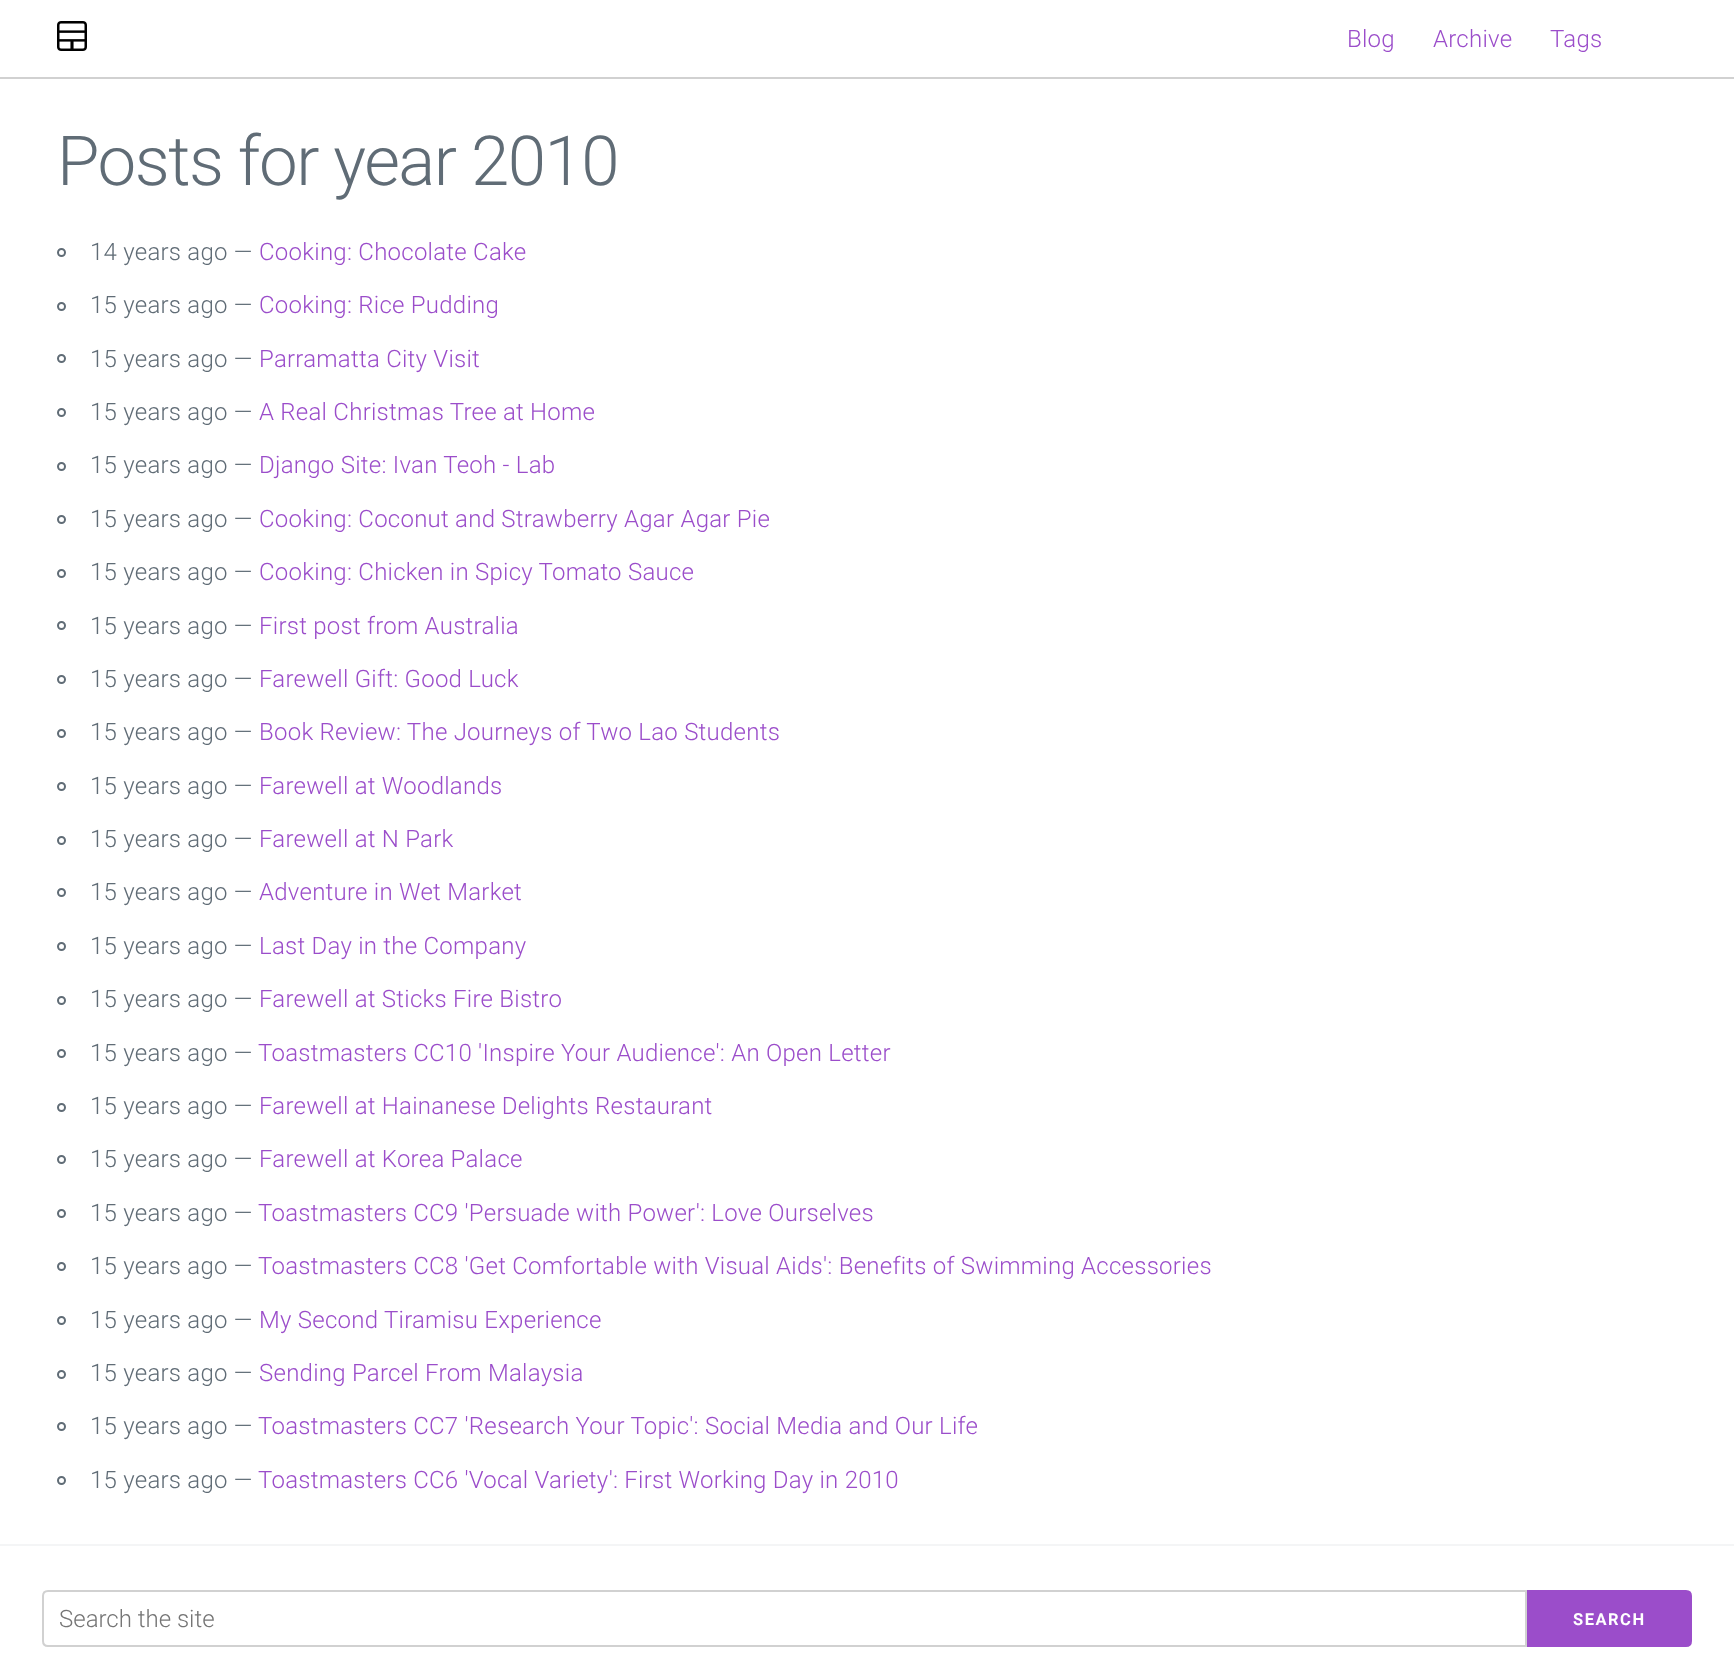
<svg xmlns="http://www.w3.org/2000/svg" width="1734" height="1671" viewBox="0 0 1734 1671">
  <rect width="100%" height="100%" fill="rgb(255,255,255)"/>
  <rect x="0" y="77" width="1734" height="2" fill="rgb(209,209,209)"/>
  <image x="57" y="21" width="30" height="30" href="pic1.png"/>
  <g font-family="Roboto" font-size="24" font-weight="300" letter-spacing="0.25" fill="rgb(155,77,202)">
    <text x="1347" y="47">Blog</text>
    <text x="1433" y="47">Archive</text>
    <text x="1550" y="47">Tags</text>
  </g>
  <text x="57" y="185" font-family="Roboto" font-size="69" font-weight="300" letter-spacing="-1.5" fill="rgb(96,108,118)">Posts for year 2010</text>
  <circle cx="61.5" cy="252.5" r="3.5" fill="none" stroke="rgb(96,108,118)" stroke-width="2"/>
  <text x="90" y="260" font-family="Roboto" font-size="24" font-weight="300" letter-spacing="0.25" fill="rgb(96,108,118)">14 years ago —</text>
  <text x="259" y="260" font-family="Roboto" font-size="24" font-weight="300" letter-spacing="0.25" fill="rgb(155,77,202)">Cooking: Chocolate Cake</text>
  <circle cx="61.5" cy="306.5" r="3.5" fill="none" stroke="rgb(96,108,118)" stroke-width="2"/>
  <text x="90" y="313" font-family="Roboto" font-size="24" font-weight="300" letter-spacing="0.25" fill="rgb(96,108,118)">15 years ago —</text>
  <text x="259" y="313" font-family="Roboto" font-size="24" font-weight="300" letter-spacing="0.25" fill="rgb(155,77,202)">Cooking: Rice Pudding</text>
  <circle cx="61.5" cy="358.5" r="3.5" fill="none" stroke="rgb(96,108,118)" stroke-width="2"/>
  <text x="90" y="367" font-family="Roboto" font-size="24" font-weight="300" letter-spacing="0.25" fill="rgb(96,108,118)">15 years ago —</text>
  <text x="259" y="367" font-family="Roboto" font-size="24" font-weight="300" letter-spacing="0.25" fill="rgb(155,77,202)">Parramatta City Visit</text>
  <circle cx="61.5" cy="412.5" r="3.5" fill="none" stroke="rgb(96,108,118)" stroke-width="2"/>
  <text x="90" y="420" font-family="Roboto" font-size="24" font-weight="300" letter-spacing="0.25" fill="rgb(96,108,118)">15 years ago —</text>
  <text x="259" y="420" font-family="Roboto" font-size="24" font-weight="300" letter-spacing="0.25" fill="rgb(155,77,202)">A Real Christmas Tree at Home</text>
  <circle cx="61.5" cy="466.5" r="3.5" fill="none" stroke="rgb(96,108,118)" stroke-width="2"/>
  <text x="90" y="473" font-family="Roboto" font-size="24" font-weight="300" letter-spacing="0.25" fill="rgb(96,108,118)">15 years ago —</text>
  <text x="259" y="473" font-family="Roboto" font-size="24" font-weight="300" letter-spacing="0.25" fill="rgb(155,77,202)">Django Site: Ivan Teoh - Lab</text>
  <circle cx="61.5" cy="519.5" r="3.5" fill="none" stroke="rgb(96,108,118)" stroke-width="2"/>
  <text x="90" y="527" font-family="Roboto" font-size="24" font-weight="300" letter-spacing="0.25" fill="rgb(96,108,118)">15 years ago —</text>
  <text x="259" y="527" font-family="Roboto" font-size="24" font-weight="300" letter-spacing="0.25" fill="rgb(155,77,202)">Cooking: Coconut and Strawberry Agar Agar Pie</text>
  <circle cx="61.5" cy="573.5" r="3.5" fill="none" stroke="rgb(96,108,118)" stroke-width="2"/>
  <text x="90" y="580" font-family="Roboto" font-size="24" font-weight="300" letter-spacing="0.25" fill="rgb(96,108,118)">15 years ago —</text>
  <text x="259" y="580" font-family="Roboto" font-size="24" font-weight="300" letter-spacing="0.25" fill="rgb(155,77,202)">Cooking: Chicken in Spicy Tomato Sauce</text>
  <circle cx="61.5" cy="625.5" r="3.5" fill="none" stroke="rgb(96,108,118)" stroke-width="2"/>
  <text x="90" y="634" font-family="Roboto" font-size="24" font-weight="300" letter-spacing="0.25" fill="rgb(96,108,118)">15 years ago —</text>
  <text x="259" y="634" font-family="Roboto" font-size="24" font-weight="300" letter-spacing="0.25" fill="rgb(155,77,202)">First post from Australia</text>
  <circle cx="61.5" cy="679.5" r="3.5" fill="none" stroke="rgb(96,108,118)" stroke-width="2"/>
  <text x="90" y="687" font-family="Roboto" font-size="24" font-weight="300" letter-spacing="0.25" fill="rgb(96,108,118)">15 years ago —</text>
  <text x="259" y="687" font-family="Roboto" font-size="24" font-weight="300" letter-spacing="0.25" fill="rgb(155,77,202)">Farewell Gift: Good Luck</text>
  <circle cx="61.5" cy="733.5" r="3.5" fill="none" stroke="rgb(96,108,118)" stroke-width="2"/>
  <text x="90" y="740" font-family="Roboto" font-size="24" font-weight="300" letter-spacing="0.25" fill="rgb(96,108,118)">15 years ago —</text>
  <text x="259" y="740" font-family="Roboto" font-size="24" font-weight="300" letter-spacing="0.25" fill="rgb(155,77,202)">Book Review: The Journeys of Two Lao Students</text>
  <circle cx="61.5" cy="786.5" r="3.5" fill="none" stroke="rgb(96,108,118)" stroke-width="2"/>
  <text x="90" y="794" font-family="Roboto" font-size="24" font-weight="300" letter-spacing="0.25" fill="rgb(96,108,118)">15 years ago —</text>
  <text x="259" y="794" font-family="Roboto" font-size="24" font-weight="300" letter-spacing="0.25" fill="rgb(155,77,202)">Farewell at Woodlands</text>
  <circle cx="61.5" cy="840.5" r="3.5" fill="none" stroke="rgb(96,108,118)" stroke-width="2"/>
  <text x="90" y="847" font-family="Roboto" font-size="24" font-weight="300" letter-spacing="0.25" fill="rgb(96,108,118)">15 years ago —</text>
  <text x="259" y="847" font-family="Roboto" font-size="24" font-weight="300" letter-spacing="0.25" fill="rgb(155,77,202)">Farewell at N Park</text>
  <circle cx="61.5" cy="892.5" r="3.5" fill="none" stroke="rgb(96,108,118)" stroke-width="2"/>
  <text x="90" y="900" font-family="Roboto" font-size="24" font-weight="300" letter-spacing="0.25" fill="rgb(96,108,118)">15 years ago —</text>
  <text x="259" y="900" font-family="Roboto" font-size="24" font-weight="300" letter-spacing="0.25" fill="rgb(155,77,202)">Adventure in Wet Market</text>
  <circle cx="61.5" cy="946.5" r="3.5" fill="none" stroke="rgb(96,108,118)" stroke-width="2"/>
  <text x="90" y="954" font-family="Roboto" font-size="24" font-weight="300" letter-spacing="0.25" fill="rgb(96,108,118)">15 years ago —</text>
  <text x="259" y="954" font-family="Roboto" font-size="24" font-weight="300" letter-spacing="0.25" fill="rgb(155,77,202)">Last Day in the Company</text>
  <circle cx="61.5" cy="1000.5" r="3.5" fill="none" stroke="rgb(96,108,118)" stroke-width="2"/>
  <text x="90" y="1007" font-family="Roboto" font-size="24" font-weight="300" letter-spacing="0.25" fill="rgb(96,108,118)">15 years ago —</text>
  <text x="259" y="1007" font-family="Roboto" font-size="24" font-weight="300" letter-spacing="0.25" fill="rgb(155,77,202)">Farewell at Sticks Fire Bistro</text>
  <circle cx="61.5" cy="1053.5" r="3.5" fill="none" stroke="rgb(96,108,118)" stroke-width="2"/>
  <text x="90" y="1061" font-family="Roboto" font-size="24" font-weight="300" letter-spacing="0.25" fill="rgb(96,108,118)">15 years ago —</text>
  <text x="258" y="1061" font-family="Roboto" font-size="24" font-weight="300" letter-spacing="0.25" fill="rgb(155,77,202)">Toastmasters CC10 'Inspire Your Audience': An Open Letter</text>
  <circle cx="61.5" cy="1107.5" r="3.5" fill="none" stroke="rgb(96,108,118)" stroke-width="2"/>
  <text x="90" y="1114" font-family="Roboto" font-size="24" font-weight="300" letter-spacing="0.25" fill="rgb(96,108,118)">15 years ago —</text>
  <text x="259" y="1114" font-family="Roboto" font-size="24" font-weight="300" letter-spacing="0.25" fill="rgb(155,77,202)">Farewell at Hainanese Delights Restaurant</text>
  <circle cx="61.5" cy="1159.5" r="3.5" fill="none" stroke="rgb(96,108,118)" stroke-width="2"/>
  <text x="90" y="1167" font-family="Roboto" font-size="24" font-weight="300" letter-spacing="0.25" fill="rgb(96,108,118)">15 years ago —</text>
  <text x="259" y="1167" font-family="Roboto" font-size="24" font-weight="300" letter-spacing="0.25" fill="rgb(155,77,202)">Farewell at Korea Palace</text>
  <circle cx="61.5" cy="1213.5" r="3.5" fill="none" stroke="rgb(96,108,118)" stroke-width="2"/>
  <text x="90" y="1221" font-family="Roboto" font-size="24" font-weight="300" letter-spacing="0.25" fill="rgb(96,108,118)">15 years ago —</text>
  <text x="258" y="1221" font-family="Roboto" font-size="24" font-weight="300" letter-spacing="0.25" fill="rgb(155,77,202)">Toastmasters CC9 'Persuade with Power': Love Ourselves</text>
  <circle cx="61.5" cy="1266.5" r="3.5" fill="none" stroke="rgb(96,108,118)" stroke-width="2"/>
  <text x="90" y="1274" font-family="Roboto" font-size="24" font-weight="300" letter-spacing="0.25" fill="rgb(96,108,118)">15 years ago —</text>
  <text x="258" y="1274" font-family="Roboto" font-size="24" font-weight="300" letter-spacing="0.25" fill="rgb(155,77,202)">Toastmasters CC8 'Get Comfortable with Visual Aids': Benefits of Swimming Accessories</text>
  <circle cx="61.5" cy="1320.5" r="3.5" fill="none" stroke="rgb(96,108,118)" stroke-width="2"/>
  <text x="90" y="1328" font-family="Roboto" font-size="24" font-weight="300" letter-spacing="0.25" fill="rgb(96,108,118)">15 years ago —</text>
  <text x="259" y="1328" font-family="Roboto" font-size="24" font-weight="300" letter-spacing="0.25" fill="rgb(155,77,202)">My Second Tiramisu Experience</text>
  <circle cx="61.5" cy="1374.5" r="3.5" fill="none" stroke="rgb(96,108,118)" stroke-width="2"/>
  <text x="90" y="1381" font-family="Roboto" font-size="24" font-weight="300" letter-spacing="0.25" fill="rgb(96,108,118)">15 years ago —</text>
  <text x="259" y="1381" font-family="Roboto" font-size="24" font-weight="300" letter-spacing="0.25" fill="rgb(155,77,202)">Sending Parcel From Malaysia</text>
  <circle cx="61.5" cy="1426.5" r="3.5" fill="none" stroke="rgb(96,108,118)" stroke-width="2"/>
  <text x="90" y="1434" font-family="Roboto" font-size="24" font-weight="300" letter-spacing="0.25" fill="rgb(96,108,118)">15 years ago —</text>
  <text x="258" y="1434" font-family="Roboto" font-size="24" font-weight="300" letter-spacing="0.25" fill="rgb(155,77,202)">Toastmasters CC7 'Research Your Topic': Social Media and Our Life</text>
  <circle cx="61.5" cy="1480.5" r="3.5" fill="none" stroke="rgb(96,108,118)" stroke-width="2"/>
  <text x="90" y="1488" font-family="Roboto" font-size="24" font-weight="300" letter-spacing="0.25" fill="rgb(96,108,118)">15 years ago —</text>
  <text x="258" y="1488" font-family="Roboto" font-size="24" font-weight="300" letter-spacing="0.25" fill="rgb(155,77,202)">Toastmasters CC6 'Vocal Variety': First Working Day in 2010</text>
  <rect x="0" y="1544" width="1734" height="2" fill="rgb(244,245,246)"/>
  <path d="M48 1591H1526V1646H48C45 1646 43 1644 43 1641V1596C43 1593 45 1591 48 1591Z" fill="none" stroke="rgb(209,209,209)" stroke-width="2"/>
  <text x="59" y="1627" font-family="Roboto" font-size="24" font-weight="300" fill="rgb(117,117,117)">Search the site</text>
  <path d="M1528 1591H1686C1689 1591 1691 1593 1691 1596V1641C1691 1644 1689 1646 1686 1646H1528Z" fill="rgb(155,77,202)" stroke="rgb(155,77,202)" stroke-width="2"/>
  <text x="1573" y="1625" font-family="Roboto" font-size="16.5" font-weight="bold" letter-spacing="1.5" fill="rgb(255,255,255)">SEARCH</text>
</svg>
